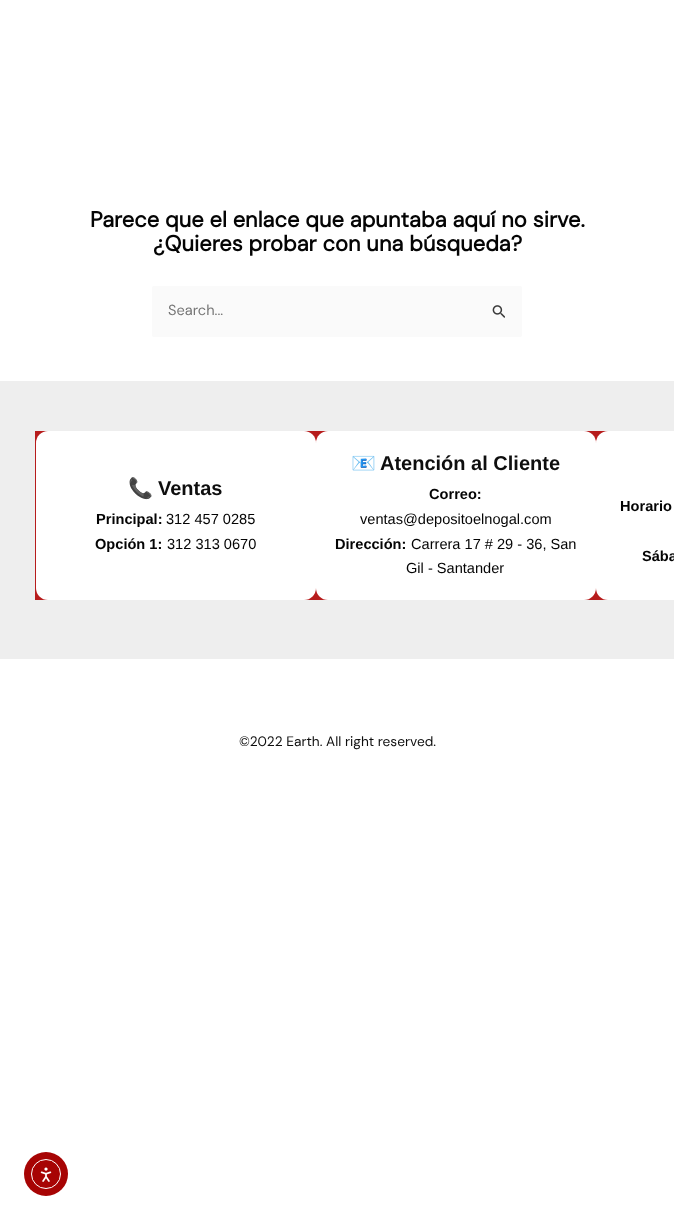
<svg xmlns="http://www.w3.org/2000/svg" width="674" height="1220" viewBox="0 0 674 1220">
  <rect width="100%" height="100%" fill="rgb(255,255,255)"/>
  <g font-family="DM Sans" font-size="21.9" font-weight="bold" fill="rgb(4,4,4)">
    <text x="90" y="227">Parece que el enlace que apuntaba aquí no sirve.</text>
    <text x="153" y="251">¿Quieres probar con una búsqueda?</text>
  </g>
  <rect x="152" y="286" width="370" height="51" rx="2" fill="rgb(250,250,250)"/>
  <text x="168" y="315" font-family="DM Sans" font-size="14.6" fill="rgb(117,117,117)">Search...</text>
  <image x="492" y="305" width="13" height="13" href="pic1.png"/>
  <rect x="0" y="381" width="674" height="278" fill="rgb(238,238,238)"/>
  <rect x="35" y="431" width="573" height="169" fill="rgb(183,28,28)"/>
  <rect x="36" y="431" width="280" height="169" rx="12" fill="rgb(255,255,255)"/>
  <text x="128" y="495" font-family="Noto Color Emoji" font-size="20" font-weight="bold" fill="rgb(14,14,14)">📞</text>
  <text x="158" y="495" font-family="Liberation Sans" font-size="20" font-weight="bold" fill="rgb(14,14,14)">Ventas</text>
  <text x="96" y="524" font-family="Liberation Sans" font-size="14.6" font-weight="bold" fill="rgb(4,4,4)">Principal:</text>
  <text x="166" y="524" font-family="Liberation Sans" font-size="14.6" fill="rgb(4,4,4)">312 457 0285</text>
  <text x="95" y="549" font-family="Liberation Sans" font-size="14.6" font-weight="bold" fill="rgb(4,4,4)">Opción 1:</text>
  <text x="167" y="549" font-family="Liberation Sans" font-size="14.6" fill="rgb(4,4,4)">312 313 0670</text>
  <rect x="316" y="431" width="280" height="169" rx="12" fill="rgb(255,255,255)"/>
  <text x="351" y="470" font-family="Noto Color Emoji" font-size="20" font-weight="bold" fill="rgb(14,14,14)">📧</text>
  <text x="380" y="470" font-family="Liberation Sans" font-size="20" font-weight="bold" fill="rgb(14,14,14)">Atención al Cliente</text>
  <text x="429" y="499" font-family="Liberation Sans" font-size="14.6" font-weight="bold" fill="rgb(4,4,4)">Correo:</text>
  <text x="360" y="524" font-family="Liberation Sans" font-size="14.6" fill="rgb(4,4,4)">ventas@depositoelnogal.com</text>
  <text x="335" y="549" font-family="Liberation Sans" font-size="14.6" font-weight="bold" fill="rgb(4,4,4)">Dirección:</text>
  <g font-family="Liberation Sans" font-size="14.6" fill="rgb(4,4,4)">
    <text x="411" y="549">Carrera 17 # 29 - 36, San</text>
    <text x="406" y="573">Gil - Santander</text>
  </g>
  <rect x="596" y="431" width="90" height="169" rx="12" fill="rgb(255,255,255)"/>
  <g font-family="Liberation Sans" font-size="14.6" font-weight="bold" fill="rgb(4,4,4)">
    <text x="620" y="511">Horario</text>
    <text x="642" y="561">Sába</text>
  </g>
  <text x="239" y="746" font-family="DM Sans" font-size="13.7" fill="rgb(14,14,14)">©2022 Earth. All right reserved.</text>
  <circle cx="46" cy="1174" r="22" fill="rgb(167,4,4)"/>
  <circle cx="46" cy="1174" r="14.5" fill="none" stroke="rgb(255,255,255)"/>
  <image x="40" y="1167" width="12" height="15" href="pic2.png"/>
</svg>
